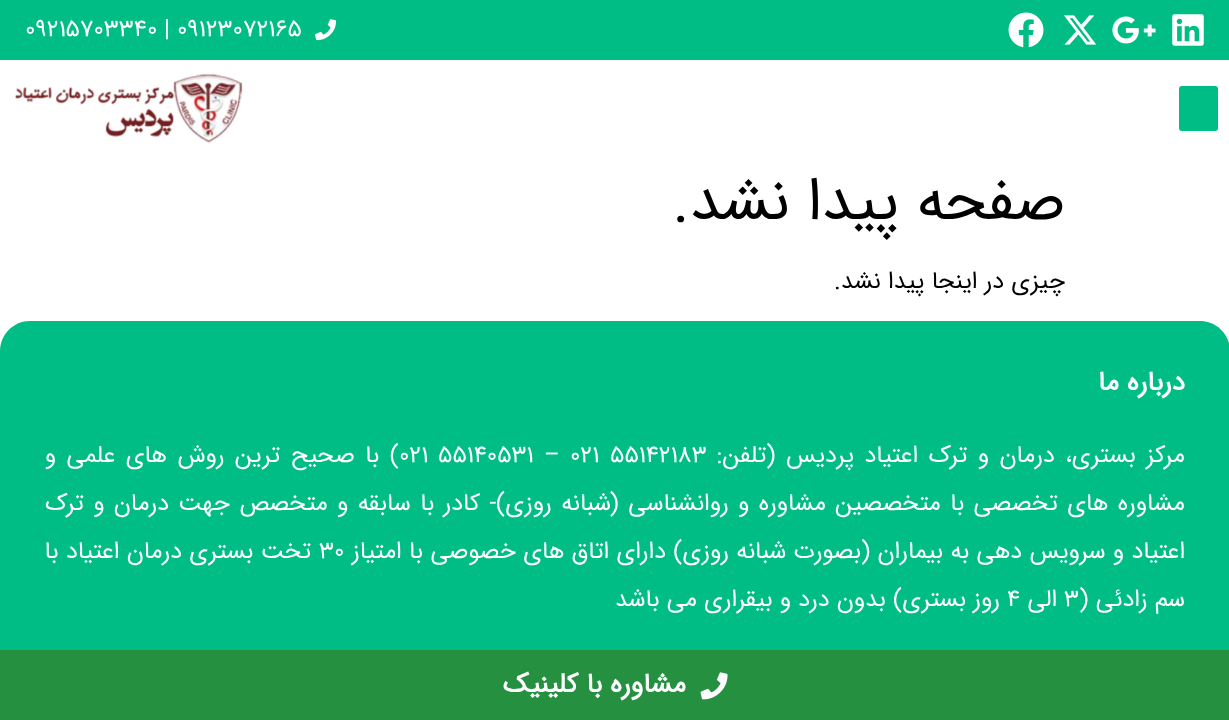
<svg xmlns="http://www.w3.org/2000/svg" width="1229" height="720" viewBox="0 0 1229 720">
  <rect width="100%" height="100%" fill="rgb(255,255,255)"/>
  <rect x="0" y="0" width="1229" height="60" fill="rgb(0,189,134)"/>
  <image x="1172" y="14" width="32" height="32" href="pic1.png"/>
  <image x="1112" y="16" width="44" height="28" href="pic2.png"/>
  <image x="1064" y="15" width="33" height="30" href="pic3.png"/>
  <image x="1008" y="12" width="36" height="36" href="pic4.png"/>
  <image x="315" y="19" width="21" height="22" href="pic5.png"/>
  <g font-family="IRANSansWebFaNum" font-size="24" fill="rgb(255,255,255)">
    <text x="177" y="36">09123072165</text>
    <text x="164" y="36">|</text>
    <text x="25" y="36">09215703340</text>
  </g>
  <rect x="1179" y="86" width="39" height="45" rx="3" fill="rgb(0,189,134)"/>
  <image x="15" y="73" width="228" height="71" href="pic6.png"/>
  <text x="1065" y="219" font-family="IRANSansWebFaNum" font-size="60" direction="rtl" fill="rgb(0,0,0)">صفحه پیدا نشد.</text>
  <text x="1065" y="288" font-family="IRANSansWebFaNum" font-size="24" direction="rtl" fill="rgb(0,0,0)">چیزی در اینجا پیدا نشد.</text>
  <path d="M30 321H1200C1216.5 321 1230 334.5 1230 351V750H0V351C0 334.5 13.5 321 30 321Z" fill="rgb(0,189,134)"/>
  <text x="1185" y="390" font-family="IRANSansWebFaNum" font-size="27" font-weight="bold" direction="rtl" fill="rgb(255,255,255)">درباره ما</text>
  <text x="1185" y="462" word-spacing="3.25" font-family="IRANSansWebFaNum" font-size="24" direction="rtl" fill="rgb(255,255,255)">مرکز بستری، درمان و ترک اعتیاد پردیس (تلفن:</text>
  <g font-family="IRANSansWebFaNum" font-size="24" fill="rgb(255,255,255)">
    <text x="610" y="462">55142183</text>
    <text x="570" y="462">021</text>
    <text x="544" y="462">–</text>
    <text x="438" y="462">55140531</text>
    <text x="399" y="462">021</text>
  </g>
  <g font-family="IRANSansWebFaNum" font-size="24" direction="rtl" fill="rgb(255,255,255)">
    <text x="399" y="462" word-spacing="3.25">) با صحیح ترین روش های علمی و</text>
    <text x="1185" y="510" word-spacing="2.1">مشاوره های تخصصی با متخصصین مشاوره و روانشناسی (شبانه روزی)- کادر با سابقه و متخصص جهت درمان و ترک</text>
    <text x="1185" y="558" word-spacing="0.1">اعتیاد و سرویس دهی به بیماران (بصورت شبانه روزی) دارای اتاق های خصوصی با امتیاز</text>
  </g>
  <text x="319" y="558" font-family="IRANSansWebFaNum" font-size="24" fill="rgb(255,255,255)">30</text>
  <g font-family="IRANSansWebFaNum" font-size="24" direction="rtl" fill="rgb(255,255,255)">
    <text x="311" y="558" word-spacing="0.1">تخت بستری درمان اعتیاد با</text>
    <text x="1185" y="606">سم زادئی (</text>
  </g>
  <text x="1064" y="606" font-family="IRANSansWebFaNum" font-size="24" fill="rgb(255,255,255)">3</text>
  <text x="1057" y="606" font-family="IRANSansWebFaNum" font-size="24" direction="rtl" fill="rgb(255,255,255)">الی</text>
  <text x="1007" y="606" font-family="IRANSansWebFaNum" font-size="24" fill="rgb(255,255,255)">4</text>
  <text x="1000" y="606" font-family="IRANSansWebFaNum" font-size="24" direction="rtl" fill="rgb(255,255,255)">روز بستری) بدون درد و بیقراری می باشد</text>
  <rect x="0" y="650" width="1229" height="70" fill="rgb(38,144,65)"/>
  <image x="700" y="672" width="28" height="28" href="pic7.png"/>
  <text x="686" y="692" font-family="IRANSansWebFaNum" font-size="27" font-weight="bold" direction="rtl" fill="rgb(255,255,255)">مشاوره با کلینیک</text>
</svg>
